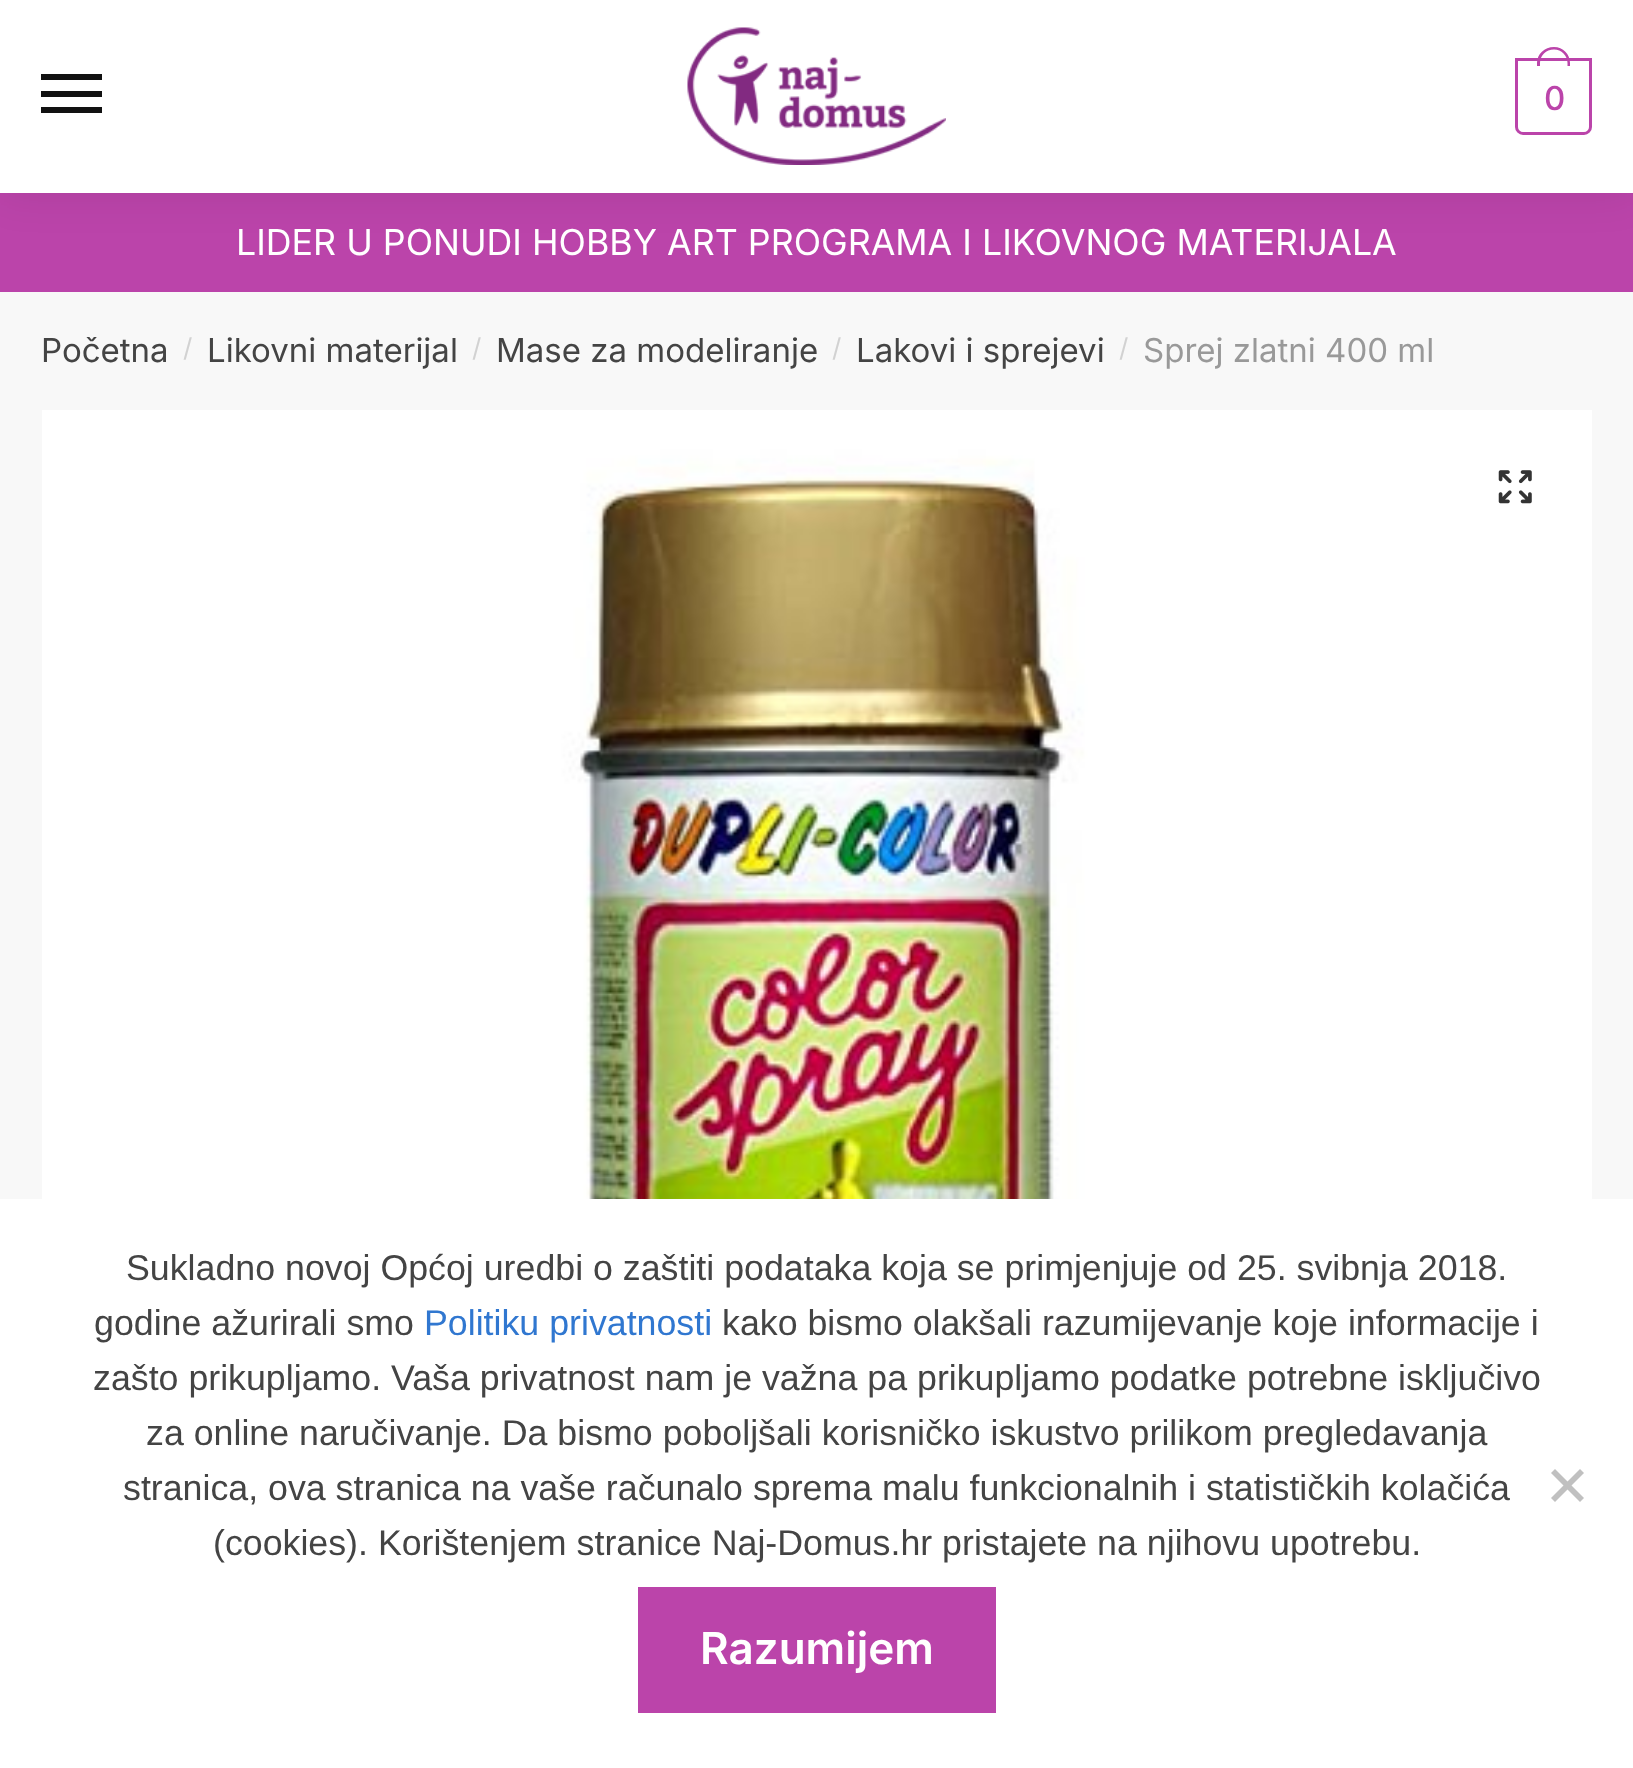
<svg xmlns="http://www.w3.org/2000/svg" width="1633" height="1768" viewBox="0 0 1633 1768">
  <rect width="100%" height="100%" fill="rgb(187,68,170)"/>
  <rect x="0" y="3" width="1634" height="192" fill="rgba(0,0,0,0.08)" filter="blur(20.5px)"/>
  <rect x="0" y="0" width="1633" height="193" fill="rgb(255,255,255)"/>
  <rect x="41" y="74" width="61" height="6" fill="rgb(17,17,17)"/>
  <rect x="41" y="91" width="61" height="6" fill="rgb(17,17,17)"/>
  <rect x="41" y="107" width="61" height="6" fill="rgb(17,17,17)"/>
  <image x="687" y="27" width="259" height="138" href="pic1.png"/>
  <path d="M1516.5 59.5H1590.5V127C1590.5 130.5 1587.5 133.5 1584 133.5H1523C1519.5 133.5 1516.5 130.5 1516.5 127Z" fill="none" stroke="rgb(187,68,170)" stroke-width="3"/>
  <path d="M1554 47C1563 47 1570 54 1570 63V66H1537V63C1537 54 1544.5 47 1554 47ZM1554 49.5C1561.5 49.5 1567.5 55.5 1567.5 63V66H1540V63C1540 55.5 1546 49.5 1554 49.5Z" fill="rgb(187,68,170)" fill-rule="evenodd"/>
  <text x="1544" y="110" font-family="Inter" font-size="33" font-weight="500" letter-spacing="-2" fill="rgb(187,68,170)">0</text>
  <text x="236" y="255" font-family="Inter" font-size="35.75" fill="rgb(255,255,255)">LIDER U PONUDI HOBBY ART PROGRAMA I LIKOVNOG MATERIJALA</text>
  <rect x="0" y="292" width="1633" height="907" fill="rgb(248,248,248)"/>
  <text x="41" y="362" font-family="Inter" font-size="33" fill="rgb(68,68,68)">Početna</text>
  <text x="183" y="357" font-family="Inter" font-size="26" fill="rgb(210,210,210)">/</text>
  <text x="207" y="362" font-family="Inter" font-size="33" fill="rgb(68,68,68)">Likovni materijal</text>
  <text x="472" y="357" font-family="Inter" font-size="26" fill="rgb(210,210,210)">/</text>
  <text x="496" y="362" font-family="Inter" font-size="33" fill="rgb(68,68,68)">Mase za modeliranje</text>
  <text x="832" y="357" font-family="Inter" font-size="26" fill="rgb(210,210,210)">/</text>
  <text x="856" y="362" font-family="Inter" font-size="33" fill="rgb(68,68,68)">Lakovi i sprejevi</text>
  <text x="1119" y="357" font-family="Inter" font-size="26" fill="rgb(210,210,210)">/</text>
  <text x="1143" y="362" font-family="Inter" font-size="33" fill="rgb(153,153,153)">Sprej zlatni 400 ml</text>
  <image x="42" y="410" width="1550" height="789" href="pic2.png"/>
  <image x="1498" y="470" width="34" height="34" href="pic3.png"/>
  <rect x="0" y="1199" width="1633" height="569" fill="rgb(255,255,255)"/>
  <g font-family="Liberation Sans" font-size="35.75" fill="rgb(68,68,68)">
    <text x="126" y="1280">Sukladno novoj Općoj uredbi o zaštiti podataka koja se primjenjuje od 25. svibnja 2018.</text>
    <text x="94" y="1335">godine ažurirali smo</text>
  </g>
  <text x="424" y="1335" font-family="Liberation Sans" font-size="35.75" fill="rgb(48,119,208)">Politiku privatnosti</text>
  <g font-family="Liberation Sans" font-size="35.75" fill="rgb(68,68,68)">
    <text x="722" y="1335">kako bismo olakšali razumijevanje koje informacije i</text>
    <text x="93" y="1390">zašto prikupljamo. Vaša privatnost nam je važna pa prikupljamo podatke potrebne isključivo</text>
    <text x="146" y="1445">za online naručivanje. Da bismo poboljšali korisničko iskustvo prilikom pregledavanja</text>
    <text x="123" y="1500">stranica, ova stranica na vaše računalo sprema malu funkcionalnih i statističkih kolačića</text>
    <text x="213" y="1555">(cookies). Korištenjem stranice Naj-Domus.hr pristajete na njihovu upotrebu.</text>
  </g>
  <path d="M1580 1469L1584 1473L1555 1502L1551 1498Z" fill="rgb(192,192,192)"/>
  <path d="M1551 1473L1555 1469L1584 1498L1580 1502Z" fill="rgb(192,192,192)"/>
  <rect x="638" y="1587" width="358" height="126" fill="rgb(187,68,170)"/>
  <text x="700" y="1664" font-family="Inter" font-size="44" font-weight="600" fill="rgb(255,255,255)">Razumijem</text>
</svg>
